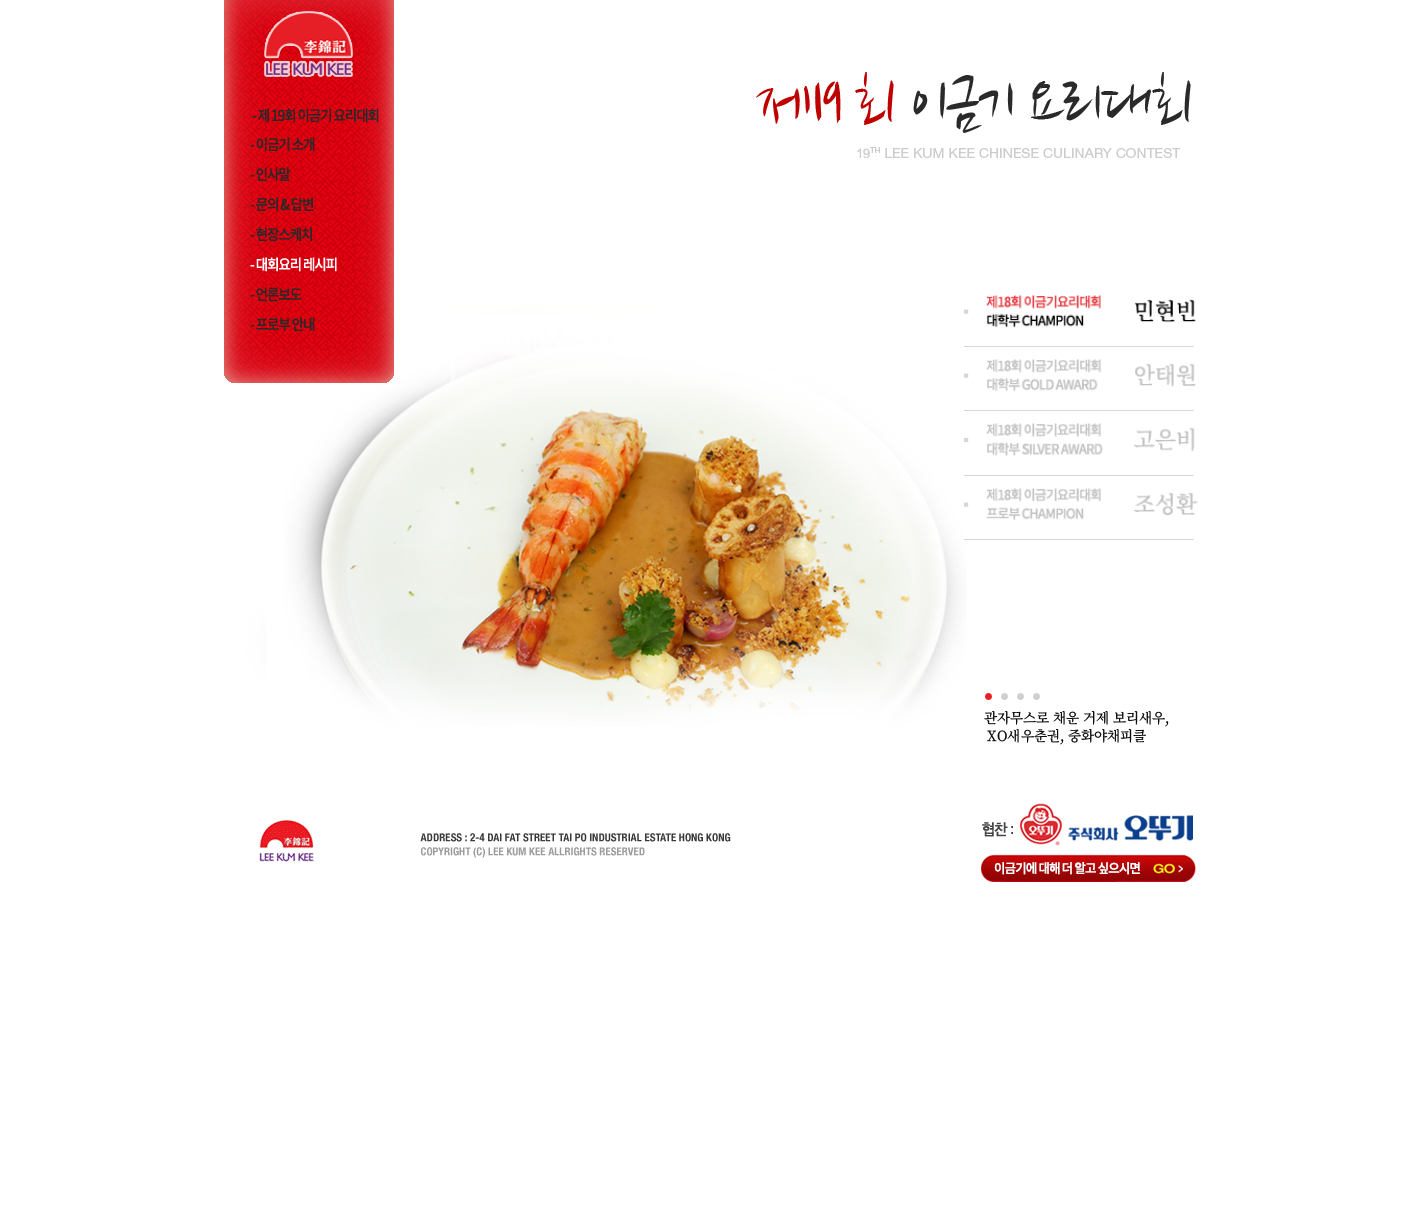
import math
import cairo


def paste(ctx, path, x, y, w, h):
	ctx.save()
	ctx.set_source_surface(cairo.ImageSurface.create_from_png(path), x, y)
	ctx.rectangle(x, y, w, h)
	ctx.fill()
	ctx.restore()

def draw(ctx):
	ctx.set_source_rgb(1, 1, 1)
	ctx.paint()
	paste(ctx, 'media/20.png', 246, 315, 702, 471)
	paste(ctx, 'media/21.png', 266, 322, 701, 464)
	paste(ctx, 'media/1.png', 224, 0, 170, 383)
	paste(ctx, 'media/2.png', 264, 11, 89, 66)
	paste(ctx, 'media/3.png', 252, 108, 127, 15)
	paste(ctx, 'media/4.png', 250, 137, 65, 15)
	paste(ctx, 'media/5.png', 250, 167, 41, 15)
	paste(ctx, 'media/6.png', 250, 197, 64, 15)
	paste(ctx, 'media/7.png', 250, 227, 62, 15)
	paste(ctx, 'media/8.png', 250, 257, 87, 15)
	paste(ctx, 'media/9.png', 250, 287, 52, 15)
	paste(ctx, 'media/10.png', 250, 317, 65, 15)
	paste(ctx, 'media/11.png', 756, 72, 435, 86)
	paste(ctx, 'media/12.png', 964, 295, 232, 52)
	paste(ctx, 'media/13.png', 964, 359, 232, 52)
	paste(ctx, 'media/14.png', 964, 423, 231, 53)
	paste(ctx, 'media/15.png', 964, 488, 234, 52)
	paste(ctx, 'media/16.png', 985, 693, 7, 7)
	paste(ctx, 'media/17.png', 1001, 693, 7, 7)
	paste(ctx, 'media/17.png', 1017, 693, 7, 7)
	paste(ctx, 'media/17.png', 1033, 693, 7, 7)
	paste(ctx, 'media/18.png', 984, 711, 185, 34)
	paste(ctx, 'media/19.png', 394, 300, 548, 15)
	paste(ctx, 'media/22.png', 259, 803, 937, 79)


surface = cairo.ImageSurface(cairo.FORMAT_RGB24, 1428, 1228)
ctx = cairo.Context(surface)
options = cairo.FontOptions()
options.set_hint_metrics(cairo.HINT_METRICS_OFF)
options.set_hint_style(cairo.HINT_STYLE_NONE)
ctx.set_font_options(options)
ctx.set_miter_limit(4)
draw(ctx)
surface.write_to_png('image.png')
